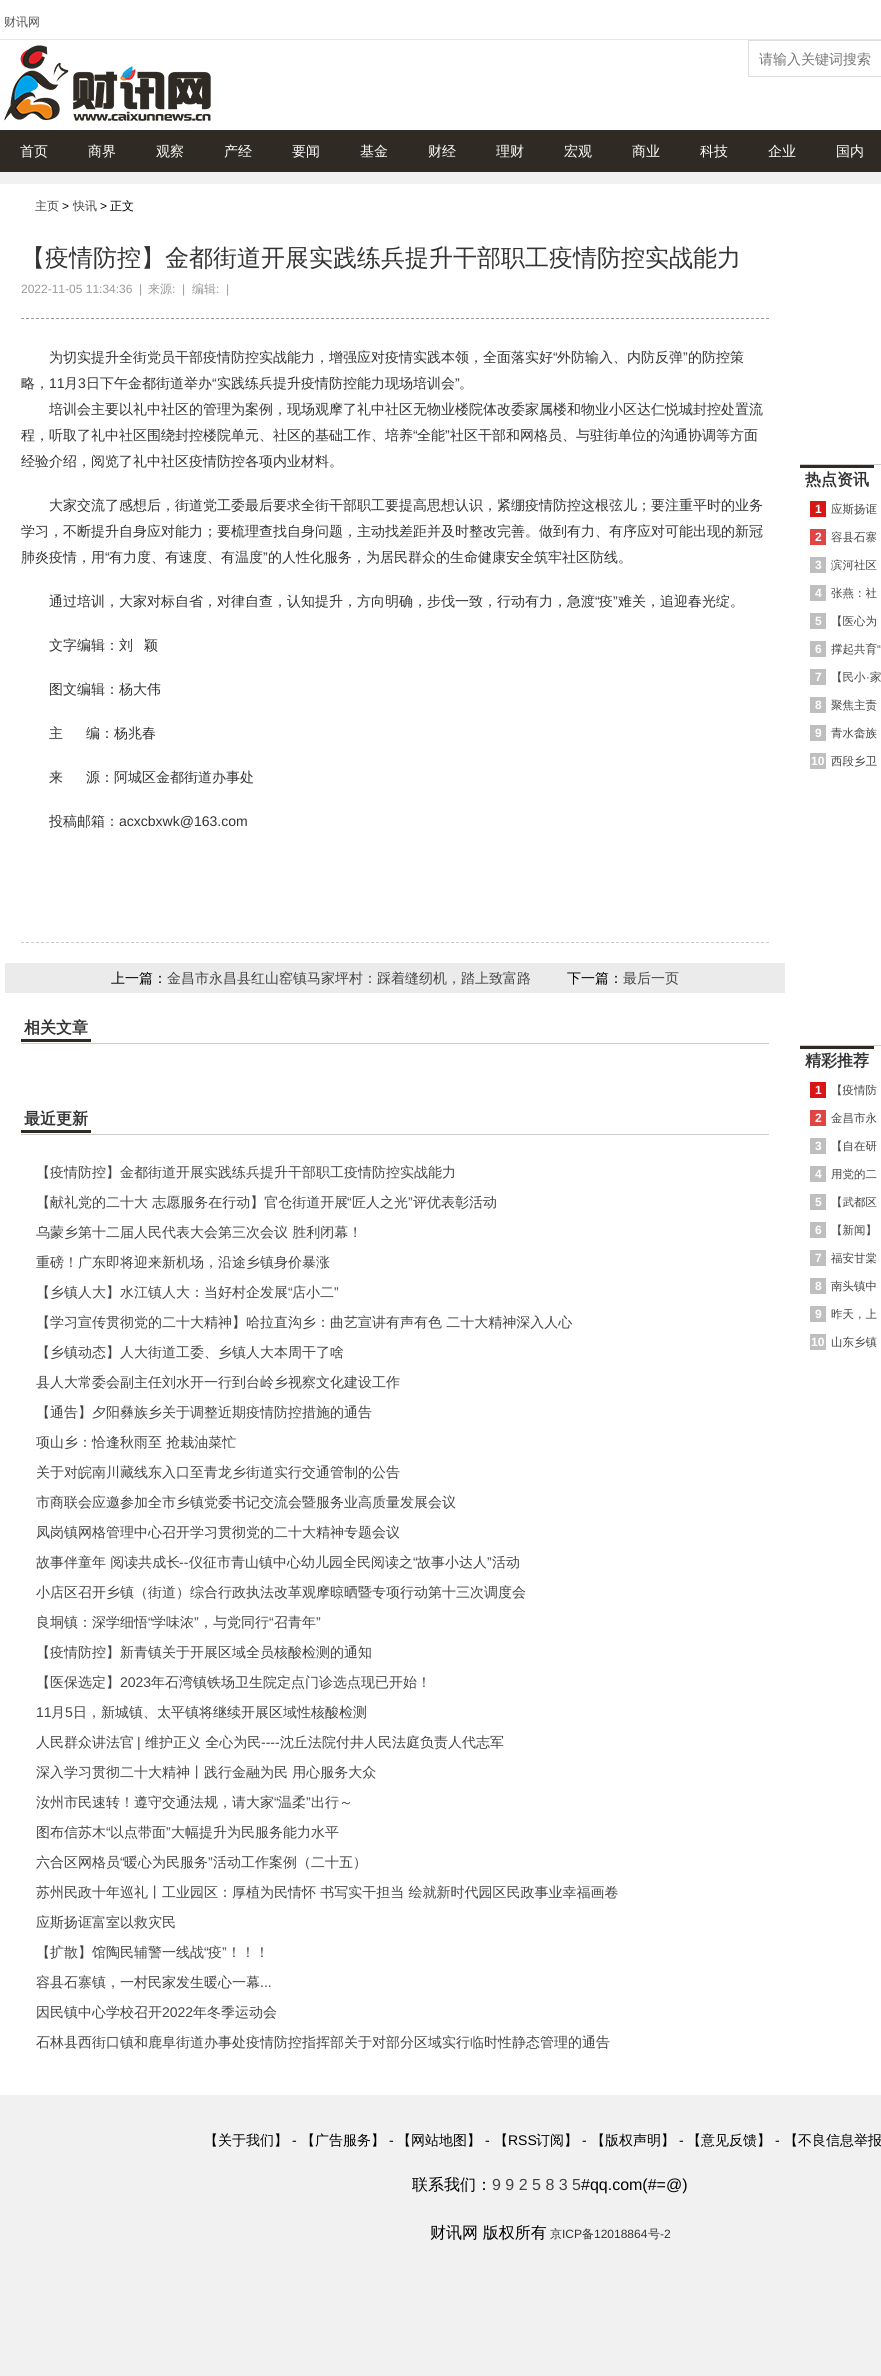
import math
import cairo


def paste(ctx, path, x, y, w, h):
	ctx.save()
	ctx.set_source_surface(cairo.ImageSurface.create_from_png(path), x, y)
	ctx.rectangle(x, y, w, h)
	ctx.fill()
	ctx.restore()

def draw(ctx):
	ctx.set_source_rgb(0.945, 0.945, 0.945)
	ctx.paint()
	ctx.set_source_rgb(1, 1, 1)
	ctx.rectangle(0, 0, 881, 130)
	ctx.fill()
	ctx.set_source_rgb(0.906, 0.906, 0.906)
	ctx.rectangle(0, 39, 881, 1)
	ctx.fill()
	ctx.select_font_face('WenQuanYi Zen Hei Medium')
	ctx.set_font_size(12)
	ctx.set_source_rgb(0.333, 0.333, 0.333)
	ctx.move_to(4, 26)
	ctx.show_text('财讯网')
	paste(ctx, 'media/1.png', 4, 45, 207, 76)
	ctx.rectangle(748.5, 40.5, 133, 36)
	ctx.set_source_rgb(0.875, 0.863, 0.863)
	ctx.set_line_width(1)
	ctx.stroke()
	ctx.set_font_size(14)
	ctx.set_source_rgb(0.459, 0.459, 0.459)
	ctx.move_to(759, 64)
	ctx.show_text('请输入关键词搜索')
	ctx.set_source_rgb(0.184, 0.165, 0.141)
	ctx.rectangle(0, 130, 881, 42)
	ctx.fill()
	ctx.set_source_rgb(1, 1, 1)
	for x, y, s in [
		(20, 156, '首页'),
		(88, 156, '商界'),
		(156, 156, '观察'),
		(224, 156, '产经'),
		(292, 156, '要闻'),
		(360, 156, '基金'),
		(428, 156, '财经'),
		(496, 156, '理财'),
		(564, 156, '宏观'),
		(632, 156, '商业'),
		(700, 156, '科技'),
		(768, 156, '企业'),
		(836, 156, '国内'),
	]:
		ctx.move_to(x, y)
		ctx.show_text(s)
	ctx.rectangle(0, 184, 881, 1911)
	ctx.fill()
	ctx.set_font_size(12)
	ctx.set_source_rgb(0.267, 0.267, 0.267)
	ctx.move_to(35, 210)
	ctx.show_text('主页')
	ctx.select_font_face('Liberation Sans')
	ctx.set_source_rgb(0, 0, 0)
	ctx.move_to(62, 210)
	ctx.show_text('>')
	ctx.select_font_face('WenQuanYi Zen Hei Medium')
	ctx.set_source_rgb(0.267, 0.267, 0.267)
	ctx.move_to(73, 210)
	ctx.show_text('快讯')
	ctx.select_font_face('Liberation Sans')
	ctx.set_source_rgb(0, 0, 0)
	ctx.move_to(100, 210)
	ctx.show_text('>')
	ctx.select_font_face('WenQuanYi Zen Hei Medium')
	ctx.move_to(110, 210)
	ctx.show_text('正文')
	ctx.new_path()
	ctx.move_to(21, 318.5)
	ctx.line_to(769, 318.5)
	ctx.set_source_rgb(0.6, 0.6, 0.6)
	ctx.set_dash([3, 2])
	ctx.stroke()
	ctx.set_font_size(24)
	ctx.set_source_rgb(0.2, 0.2, 0.2)
	ctx.move_to(21, 266)
	ctx.show_text('【疫情防控】金都街道开展实践练兵提升干部职工疫情防控实战能力')
	ctx.select_font_face('Liberation Sans')
	ctx.set_font_size(12)
	ctx.set_source_rgb(0.6, 0.6, 0.6)
	ctx.move_to(21, 293)
	ctx.show_text('2022-11-05 11:34:36  |')
	ctx.select_font_face('WenQuanYi Zen Hei Medium')
	ctx.move_to(148, 293)
	ctx.show_text('来源')
	ctx.select_font_face('Liberation Sans')
	ctx.move_to(172, 293)
	ctx.show_text(':  |')
	ctx.select_font_face('WenQuanYi Zen Hei Medium')
	ctx.move_to(192, 293)
	ctx.show_text('编辑')
	ctx.select_font_face('Liberation Sans')
	ctx.move_to(216, 293)
	ctx.show_text(':  |')
	ctx.new_path()
	ctx.move_to(21, 942.5)
	ctx.line_to(769, 942.5)
	ctx.set_source_rgb(0.8, 0.8, 0.8)
	ctx.stroke()
	ctx.select_font_face('WenQuanYi Zen Hei Medium')
	ctx.set_font_size(14)
	ctx.set_source_rgb(0.2, 0.2, 0.2)
	ctx.move_to(49, 362)
	ctx.show_text('为切实提升全街党员干部疫情防控实战能力，增强应对疫情实践本领，全面落实好')
	ctx.select_font_face('Liberation Sans')
	ctx.move_to(553, 362)
	ctx.show_text('“')
	ctx.select_font_face('WenQuanYi Zen Hei Medium')
	ctx.move_to(557, 362)
	ctx.show_text('外防输入、内防反弹')
	ctx.select_font_face('Liberation Sans')
	ctx.move_to(683, 362)
	ctx.show_text('”')
	ctx.select_font_face('WenQuanYi Zen Hei Medium')
	ctx.move_to(688, 362)
	ctx.show_text('的防控策')
	ctx.move_to(21, 388)
	ctx.show_text('略，')
	ctx.select_font_face('Liberation Sans')
	ctx.move_to(49, 388)
	ctx.show_text('11')
	ctx.select_font_face('WenQuanYi Zen Hei Medium')
	ctx.move_to(64, 388)
	ctx.show_text('月')
	ctx.select_font_face('Liberation Sans')
	ctx.move_to(78, 388)
	ctx.show_text('3')
	ctx.select_font_face('WenQuanYi Zen Hei Medium')
	ctx.move_to(86, 388)
	ctx.show_text('日下午金都街道举办')
	ctx.select_font_face('Liberation Sans')
	ctx.move_to(212, 388)
	ctx.show_text('“')
	ctx.select_font_face('WenQuanYi Zen Hei Medium')
	ctx.move_to(217, 388)
	ctx.show_text('实践练兵提升疫情防控能力现场培训会')
	ctx.select_font_face('Liberation Sans')
	ctx.move_to(455, 388)
	ctx.show_text('”')
	ctx.select_font_face('WenQuanYi Zen Hei Medium')
	for x, y, s in [
		(459, 388, '。'),
		(49, 414, '培训会主要以礼中社区的管理为案例，现场观摩了礼中社区无物业楼院体改委家属楼和物业小区达仁悦城封控处置流'),
		(21, 440, '程，听取了礼中社区围绕封控楼院单元、社区的基础工作、培养'),
	]:
		ctx.move_to(x, y)
		ctx.show_text(s)
	ctx.select_font_face('Liberation Sans')
	ctx.move_to(413, 440)
	ctx.show_text('“')
	ctx.select_font_face('WenQuanYi Zen Hei Medium')
	ctx.move_to(417, 440)
	ctx.show_text('全能')
	ctx.select_font_face('Liberation Sans')
	ctx.move_to(445, 440)
	ctx.show_text('”')
	ctx.select_font_face('WenQuanYi Zen Hei Medium')
	for x, y, s in [
		(450, 440, '社区干部和网格员、与驻街单位的沟通协调等方面'),
		(21, 466, '经验介绍，阅览了礼中社区疫情防控各项内业材料。'),
		(49, 510, '大家交流了感想后，街道党工委最后要求全街干部职工要提高思想认识，紧绷疫情防控这根弦儿；要注重平时的业务'),
		(21, 536, '学习，不断提升自身应对能力；要梳理查找自身问题，主动找差距并及时整改完善。做到有力、有序应对可能出现的新冠'),
		(21, 562, '肺炎疫情，用'),
	]:
		ctx.move_to(x, y)
		ctx.show_text(s)
	ctx.select_font_face('Liberation Sans')
	ctx.move_to(105, 562)
	ctx.show_text('“')
	ctx.select_font_face('WenQuanYi Zen Hei Medium')
	ctx.move_to(109, 562)
	ctx.show_text('有力度、有速度、有温度')
	ctx.select_font_face('Liberation Sans')
	ctx.move_to(263, 562)
	ctx.show_text('”')
	ctx.select_font_face('WenQuanYi Zen Hei Medium')
	ctx.move_to(268, 562)
	ctx.show_text('的人性化服务，为居民群众的生命健康安全筑牢社区防线。')
	ctx.move_to(49, 606)
	ctx.show_text('通过培训，大家对标自省，对律自查，认知提升，方向明确，步伐一致，行动有力，急渡')
	ctx.select_font_face('Liberation Sans')
	ctx.move_to(595, 606)
	ctx.show_text('“')
	ctx.select_font_face('WenQuanYi Zen Hei Medium')
	ctx.move_to(599, 606)
	ctx.show_text('疫')
	ctx.select_font_face('Liberation Sans')
	ctx.move_to(613, 606)
	ctx.show_text('”')
	ctx.select_font_face('WenQuanYi Zen Hei Medium')
	for x, y, s in [
		(618, 606, '难关，追迎春光绽。'),
		(49, 650, '文字编辑：刘'),
		(144, 650, '颖'),
		(49, 694, '图文编辑：杨大伟'),
		(49, 738, '主'),
		(86, 738, '编：杨兆春'),
		(49, 782, '来'),
		(86, 782, '源：阿城区金都街道办事处'),
		(49, 826, '投稿邮箱：'),
	]:
		ctx.move_to(x, y)
		ctx.show_text(s)
	ctx.select_font_face('Liberation Sans')
	ctx.move_to(119, 826)
	ctx.show_text('acxcbxwk@163.com')
	ctx.set_source_rgb(0.918, 0.918, 0.918)
	ctx.rectangle(5, 963, 780, 30)
	ctx.fill()
	ctx.select_font_face('WenQuanYi Zen Hei Medium')
	ctx.set_source_rgb(0, 0, 0)
	ctx.move_to(111, 983)
	ctx.show_text('上一篇：')
	ctx.set_source_rgb(0.267, 0.267, 0.267)
	ctx.move_to(167, 983)
	ctx.show_text('金昌市永昌县红山窑镇马家坪村：踩着缝纫机，踏上致富路')
	ctx.set_source_rgb(0, 0, 0)
	ctx.move_to(567, 983)
	ctx.show_text('下一篇：')
	ctx.set_source_rgb(0.267, 0.267, 0.267)
	ctx.move_to(623, 983)
	ctx.show_text('最后一页')
	ctx.set_source_rgb(0.8, 0.8, 0.8)
	ctx.rectangle(21, 1043, 748, 1)
	ctx.fill()
	ctx.select_font_face('WenQuanYi Zen Hei', cairo.FONT_SLANT_NORMAL, cairo.FONT_WEIGHT_BOLD)
	ctx.set_font_size(16)
	ctx.set_source_rgb(0.2, 0.2, 0.2)
	ctx.move_to(24, 1033)
	ctx.show_text('相关文章')
	ctx.set_source_rgb(0.184, 0.165, 0.141)
	ctx.rectangle(21, 1039, 70, 3)
	ctx.fill()
	ctx.set_source_rgb(0.8, 0.8, 0.8)
	ctx.rectangle(21, 1134, 748, 1)
	ctx.fill()
	ctx.set_source_rgb(0.2, 0.2, 0.2)
	ctx.move_to(24, 1124)
	ctx.show_text('最近更新')
	ctx.set_source_rgb(0.184, 0.165, 0.141)
	ctx.rectangle(21, 1130, 70, 3)
	ctx.fill()
	ctx.select_font_face('WenQuanYi Zen Hei Medium')
	ctx.set_font_size(14)
	ctx.set_source_rgb(0.267, 0.267, 0.267)
	ctx.move_to(36, 1177)
	ctx.show_text('【疫情防控】金都街道开展实践练兵提升干部职工疫情防控实战能力')
	ctx.move_to(36, 1207)
	ctx.show_text('【献礼党的二十大 志愿服务在行动】官仓街道开展')
	ctx.select_font_face('Liberation Sans')
	ctx.move_to(347, 1207)
	ctx.show_text('“')
	ctx.select_font_face('WenQuanYi Zen Hei Medium')
	ctx.move_to(352, 1207)
	ctx.show_text('匠人之光')
	ctx.select_font_face('Liberation Sans')
	ctx.move_to(408, 1207)
	ctx.show_text('”')
	ctx.select_font_face('WenQuanYi Zen Hei Medium')
	for x, y, s in [
		(413, 1207, '评优表彰活动'),
		(36, 1237, '乌蒙乡第十二届人民代表大会第三次会议 胜利闭幕！'),
		(36, 1267, '重磅！广东即将迎来新机场，沿途乡镇身价暴涨'),
		(36, 1297, '【乡镇人大】水江镇人大：当好村企发展'),
	]:
		ctx.move_to(x, y)
		ctx.show_text(s)
	ctx.select_font_face('Liberation Sans')
	ctx.move_to(288, 1297)
	ctx.show_text('“')
	ctx.select_font_face('WenQuanYi Zen Hei Medium')
	ctx.move_to(292, 1297)
	ctx.show_text('店小二')
	ctx.select_font_face('Liberation Sans')
	ctx.move_to(334, 1297)
	ctx.show_text('”')
	ctx.select_font_face('WenQuanYi Zen Hei Medium')
	for x, y, s in [
		(36, 1327, '【学习宣传贯彻党的二十大精神】哈拉直沟乡：曲艺宣讲有声有色 二十大精神深入人心'),
		(36, 1357, '【乡镇动态】人大街道工委、乡镇人大本周干了啥'),
		(36, 1387, '县人大常委会副主任刘水开一行到台岭乡视察文化建设工作'),
		(36, 1417, '【通告】夕阳彝族乡关于调整近期疫情防控措施的通告'),
		(36, 1447, '项山乡：恰逢秋雨至 抢栽油菜忙'),
		(36, 1477, '关于对皖南川藏线东入口至青龙乡街道实行交通管制的公告'),
		(36, 1507, '市商联会应邀参加全市乡镇党委书记交流会暨服务业高质量发展会议'),
		(36, 1537, '凤岗镇网格管理中心召开学习贯彻党的二十大精神专题会议'),
		(36, 1567, '故事伴童年 阅读共成长'),
	]:
		ctx.move_to(x, y)
		ctx.show_text(s)
	ctx.select_font_face('Liberation Sans')
	ctx.move_to(179, 1567)
	ctx.show_text('--')
	ctx.select_font_face('WenQuanYi Zen Hei Medium')
	ctx.move_to(189, 1567)
	ctx.show_text('仪征市青山镇中心幼儿园全民阅读之')
	ctx.select_font_face('Liberation Sans')
	ctx.move_to(413, 1567)
	ctx.show_text('“')
	ctx.select_font_face('WenQuanYi Zen Hei Medium')
	ctx.move_to(417, 1567)
	ctx.show_text('故事小达人')
	ctx.select_font_face('Liberation Sans')
	ctx.move_to(487, 1567)
	ctx.show_text('”')
	ctx.select_font_face('WenQuanYi Zen Hei Medium')
	for x, y, s in [
		(492, 1567, '活动'),
		(36, 1597, '小店区召开乡镇（街道）综合行政执法改革观摩晾晒暨专项行动第十三次调度会'),
		(36, 1627, '良垌镇：深学细悟'),
	]:
		ctx.move_to(x, y)
		ctx.show_text(s)
	ctx.select_font_face('Liberation Sans')
	ctx.move_to(148, 1627)
	ctx.show_text('“')
	ctx.select_font_face('WenQuanYi Zen Hei Medium')
	ctx.move_to(152, 1627)
	ctx.show_text('学味浓')
	ctx.select_font_face('Liberation Sans')
	ctx.move_to(194, 1627)
	ctx.show_text('”')
	ctx.select_font_face('WenQuanYi Zen Hei Medium')
	ctx.move_to(199, 1627)
	ctx.show_text('，与党同行')
	ctx.select_font_face('Liberation Sans')
	ctx.move_to(269, 1627)
	ctx.show_text('“')
	ctx.select_font_face('WenQuanYi Zen Hei Medium')
	ctx.move_to(274, 1627)
	ctx.show_text('召青年')
	ctx.select_font_face('Liberation Sans')
	ctx.move_to(316, 1627)
	ctx.show_text('”')
	ctx.select_font_face('WenQuanYi Zen Hei Medium')
	ctx.move_to(36, 1657)
	ctx.show_text('【疫情防控】新青镇关于开展区域全员核酸检测的通知')
	ctx.move_to(36, 1687)
	ctx.show_text('【医保选定】')
	ctx.select_font_face('Liberation Sans')
	ctx.move_to(120, 1687)
	ctx.show_text('2023')
	ctx.select_font_face('WenQuanYi Zen Hei Medium')
	ctx.move_to(151, 1687)
	ctx.show_text('年石湾镇铁场卫生院定点门诊选点现已开始！')
	ctx.select_font_face('Liberation Sans')
	ctx.move_to(36, 1717)
	ctx.show_text('11')
	ctx.select_font_face('WenQuanYi Zen Hei Medium')
	ctx.move_to(51, 1717)
	ctx.show_text('月')
	ctx.select_font_face('Liberation Sans')
	ctx.move_to(65, 1717)
	ctx.show_text('5')
	ctx.select_font_face('WenQuanYi Zen Hei Medium')
	ctx.move_to(73, 1717)
	ctx.show_text('日，新城镇、太平镇将继续开展区域性核酸检测')
	ctx.move_to(36, 1747)
	ctx.show_text('人民群众讲法官')
	ctx.select_font_face('Liberation Sans')
	ctx.move_to(137, 1747)
	ctx.show_text('|')
	ctx.select_font_face('WenQuanYi Zen Hei Medium')
	ctx.move_to(145, 1747)
	ctx.show_text('维护正义 全心为民')
	ctx.select_font_face('Liberation Sans')
	ctx.move_to(261, 1747)
	ctx.show_text('----')
	ctx.select_font_face('WenQuanYi Zen Hei Medium')
	for x, y, s in [
		(280, 1747, '沈丘法院付井人民法庭负责人代志军'),
		(36, 1777, '深入学习贯彻二十大精神丨践行金融为民 用心服务大众'),
		(36, 1807, '汝州市民速转！遵守交通法规，请大家'),
	]:
		ctx.move_to(x, y)
		ctx.show_text(s)
	ctx.select_font_face('Liberation Sans')
	ctx.move_to(274, 1807)
	ctx.show_text('“')
	ctx.select_font_face('WenQuanYi Zen Hei Medium')
	ctx.move_to(278, 1807)
	ctx.show_text('温柔')
	ctx.select_font_face('Liberation Sans')
	ctx.move_to(306, 1807)
	ctx.show_text('”')
	ctx.select_font_face('WenQuanYi Zen Hei Medium')
	ctx.move_to(311, 1807)
	ctx.show_text('出行～')
	ctx.move_to(36, 1837)
	ctx.show_text('图布信苏木')
	ctx.select_font_face('Liberation Sans')
	ctx.move_to(106, 1837)
	ctx.show_text('“')
	ctx.select_font_face('WenQuanYi Zen Hei Medium')
	ctx.move_to(110, 1837)
	ctx.show_text('以点带面')
	ctx.select_font_face('Liberation Sans')
	ctx.move_to(166, 1837)
	ctx.show_text('”')
	ctx.select_font_face('WenQuanYi Zen Hei Medium')
	ctx.move_to(171, 1837)
	ctx.show_text('大幅提升为民服务能力水平')
	ctx.move_to(36, 1867)
	ctx.show_text('六合区网格员')
	ctx.select_font_face('Liberation Sans')
	ctx.move_to(120, 1867)
	ctx.show_text('“')
	ctx.select_font_face('WenQuanYi Zen Hei Medium')
	ctx.move_to(124, 1867)
	ctx.show_text('暖心为民服务')
	ctx.select_font_face('Liberation Sans')
	ctx.move_to(208, 1867)
	ctx.show_text('”')
	ctx.select_font_face('WenQuanYi Zen Hei Medium')
	for x, y, s in [
		(213, 1867, '活动工作案例（二十五）'),
		(36, 1897, '苏州民政十年巡礼丨工业园区：厚植为民情怀 书写实干担当 绘就新时代园区民政事业幸福画卷'),
		(36, 1927, '应斯扬诓富室以救灾民'),
		(36, 1957, '【扩散】馆陶民辅警一线战'),
	]:
		ctx.move_to(x, y)
		ctx.show_text(s)
	ctx.select_font_face('Liberation Sans')
	ctx.move_to(204, 1957)
	ctx.show_text('“')
	ctx.select_font_face('WenQuanYi Zen Hei Medium')
	ctx.move_to(208, 1957)
	ctx.show_text('疫')
	ctx.select_font_face('Liberation Sans')
	ctx.move_to(222, 1957)
	ctx.show_text('”')
	ctx.select_font_face('WenQuanYi Zen Hei Medium')
	ctx.move_to(227, 1957)
	ctx.show_text('！！！')
	ctx.move_to(36, 1987)
	ctx.show_text('容县石寨镇，一村民家发生暖心一幕')
	ctx.select_font_face('Liberation Sans')
	ctx.move_to(260, 1987)
	ctx.show_text('...')
	ctx.select_font_face('WenQuanYi Zen Hei Medium')
	ctx.move_to(36, 2017)
	ctx.show_text('因民镇中心学校召开')
	ctx.select_font_face('Liberation Sans')
	ctx.move_to(162, 2017)
	ctx.show_text('2022')
	ctx.select_font_face('WenQuanYi Zen Hei Medium')
	ctx.move_to(193, 2017)
	ctx.show_text('年冬季运动会')
	ctx.move_to(36, 2047)
	ctx.show_text('石林县西街口镇和鹿阜街道办事处疫情防控指挥部关于对部分区域实行临时性静态管理的通告')
	ctx.set_source_rgb(0.8, 0.8, 0.8)
	ctx.rectangle(800, 464, 81, 1)
	ctx.fill()
	ctx.select_font_face('WenQuanYi Zen Hei', cairo.FONT_SLANT_NORMAL, cairo.FONT_WEIGHT_BOLD)
	ctx.set_font_size(16)
	ctx.set_source_rgb(0.2, 0.2, 0.2)
	ctx.move_to(805, 485)
	ctx.show_text('热点资讯')
	ctx.set_source_rgb(0.184, 0.165, 0.141)
	ctx.rectangle(800, 465, 74, 3)
	ctx.fill()
	ctx.set_source_rgb(0.847, 0.086, 0.09)
	ctx.rectangle(810, 501, 16, 16)
	ctx.fill()
	ctx.select_font_face('Liberation Sans', cairo.FONT_SLANT_NORMAL, cairo.FONT_WEIGHT_BOLD)
	ctx.set_font_size(12)
	ctx.set_source_rgb(1, 1, 1)
	ctx.move_to(815, 513)
	ctx.show_text('1')
	ctx.select_font_face('WenQuanYi Zen Hei Medium')
	ctx.set_font_size(11.5)
	ctx.set_source_rgb(0.267, 0.267, 0.267)
	ctx.move_to(831, 513)
	ctx.show_text('应斯扬诓')
	ctx.set_source_rgb(0.878, 0.271, 0.271)
	ctx.rectangle(810, 529, 16, 16)
	ctx.fill()
	ctx.select_font_face('Liberation Sans', cairo.FONT_SLANT_NORMAL, cairo.FONT_WEIGHT_BOLD)
	ctx.set_font_size(12)
	ctx.set_source_rgb(1, 1, 1)
	ctx.move_to(815, 541)
	ctx.show_text('2')
	ctx.select_font_face('WenQuanYi Zen Hei Medium')
	ctx.set_font_size(11.5)
	ctx.set_source_rgb(0.267, 0.267, 0.267)
	ctx.move_to(831, 541)
	ctx.show_text('容县石寨')
	ctx.set_source_rgb(0.749, 0.749, 0.749)
	ctx.rectangle(810, 557, 16, 16)
	ctx.fill()
	ctx.select_font_face('Liberation Sans', cairo.FONT_SLANT_NORMAL, cairo.FONT_WEIGHT_BOLD)
	ctx.set_font_size(12)
	ctx.set_source_rgb(1, 1, 1)
	ctx.move_to(815, 569)
	ctx.show_text('3')
	ctx.select_font_face('WenQuanYi Zen Hei Medium')
	ctx.set_font_size(11.5)
	ctx.set_source_rgb(0.267, 0.267, 0.267)
	ctx.move_to(831, 569)
	ctx.show_text('滨河社区')
	ctx.set_source_rgb(0.749, 0.749, 0.749)
	ctx.rectangle(810, 585, 16, 16)
	ctx.fill()
	ctx.select_font_face('Liberation Sans', cairo.FONT_SLANT_NORMAL, cairo.FONT_WEIGHT_BOLD)
	ctx.set_font_size(12)
	ctx.set_source_rgb(1, 1, 1)
	ctx.move_to(815, 597)
	ctx.show_text('4')
	ctx.select_font_face('WenQuanYi Zen Hei Medium')
	ctx.set_font_size(11.5)
	ctx.set_source_rgb(0.267, 0.267, 0.267)
	ctx.move_to(831, 597)
	ctx.show_text('张燕：社')
	ctx.set_source_rgb(0.749, 0.749, 0.749)
	ctx.rectangle(810, 613, 16, 16)
	ctx.fill()
	ctx.select_font_face('Liberation Sans', cairo.FONT_SLANT_NORMAL, cairo.FONT_WEIGHT_BOLD)
	ctx.set_font_size(12)
	ctx.set_source_rgb(1, 1, 1)
	ctx.move_to(815, 625)
	ctx.show_text('5')
	ctx.select_font_face('WenQuanYi Zen Hei Medium')
	ctx.set_font_size(11.5)
	ctx.set_source_rgb(0.267, 0.267, 0.267)
	ctx.move_to(831, 625)
	ctx.show_text('【医心为')
	ctx.set_source_rgb(0.749, 0.749, 0.749)
	ctx.rectangle(810, 641, 16, 16)
	ctx.fill()
	ctx.select_font_face('Liberation Sans', cairo.FONT_SLANT_NORMAL, cairo.FONT_WEIGHT_BOLD)
	ctx.set_font_size(12)
	ctx.set_source_rgb(1, 1, 1)
	ctx.move_to(815, 653)
	ctx.show_text('6')
	ctx.select_font_face('WenQuanYi Zen Hei Medium')
	ctx.set_font_size(11.5)
	ctx.set_source_rgb(0.267, 0.267, 0.267)
	ctx.move_to(831, 653)
	ctx.show_text('撑起共育')
	ctx.select_font_face('Liberation Sans')
	ctx.move_to(877, 653)
	ctx.show_text('“')
	ctx.set_source_rgb(0.749, 0.749, 0.749)
	ctx.rectangle(810, 669, 16, 16)
	ctx.fill()
	ctx.select_font_face('Liberation Sans', cairo.FONT_SLANT_NORMAL, cairo.FONT_WEIGHT_BOLD)
	ctx.set_font_size(12)
	ctx.set_source_rgb(1, 1, 1)
	ctx.move_to(815, 681)
	ctx.show_text('7')
	ctx.select_font_face('WenQuanYi Zen Hei Medium')
	ctx.set_font_size(11.5)
	ctx.set_source_rgb(0.267, 0.267, 0.267)
	ctx.move_to(831, 681)
	ctx.show_text('【民小')
	ctx.select_font_face('Liberation Sans')
	ctx.move_to(866, 681)
	ctx.show_text('·')
	ctx.select_font_face('WenQuanYi Zen Hei Medium')
	ctx.move_to(870, 681)
	ctx.show_text('家')
	ctx.set_source_rgb(0.749, 0.749, 0.749)
	ctx.rectangle(810, 697, 16, 16)
	ctx.fill()
	ctx.select_font_face('Liberation Sans', cairo.FONT_SLANT_NORMAL, cairo.FONT_WEIGHT_BOLD)
	ctx.set_font_size(12)
	ctx.set_source_rgb(1, 1, 1)
	ctx.move_to(815, 709)
	ctx.show_text('8')
	ctx.select_font_face('WenQuanYi Zen Hei Medium')
	ctx.set_font_size(11.5)
	ctx.set_source_rgb(0.267, 0.267, 0.267)
	ctx.move_to(831, 709)
	ctx.show_text('聚焦主责')
	ctx.set_source_rgb(0.749, 0.749, 0.749)
	ctx.rectangle(810, 725, 16, 16)
	ctx.fill()
	ctx.select_font_face('Liberation Sans', cairo.FONT_SLANT_NORMAL, cairo.FONT_WEIGHT_BOLD)
	ctx.set_font_size(12)
	ctx.set_source_rgb(1, 1, 1)
	ctx.move_to(815, 737)
	ctx.show_text('9')
	ctx.select_font_face('WenQuanYi Zen Hei Medium')
	ctx.set_font_size(11.5)
	ctx.set_source_rgb(0.267, 0.267, 0.267)
	ctx.move_to(831, 737)
	ctx.show_text('青水畲族')
	ctx.set_source_rgb(0.749, 0.749, 0.749)
	ctx.rectangle(810, 753, 16, 16)
	ctx.fill()
	ctx.select_font_face('Liberation Sans', cairo.FONT_SLANT_NORMAL, cairo.FONT_WEIGHT_BOLD)
	ctx.set_font_size(12)
	ctx.set_source_rgb(1, 1, 1)
	ctx.move_to(811, 765)
	ctx.show_text('10')
	ctx.select_font_face('WenQuanYi Zen Hei Medium')
	ctx.set_font_size(11.5)
	ctx.set_source_rgb(0.267, 0.267, 0.267)
	ctx.move_to(831, 765)
	ctx.show_text('西段乡卫')
	ctx.set_source_rgb(0.8, 0.8, 0.8)
	ctx.rectangle(800, 1045, 81, 1)
	ctx.fill()
	ctx.select_font_face('WenQuanYi Zen Hei', cairo.FONT_SLANT_NORMAL, cairo.FONT_WEIGHT_BOLD)
	ctx.set_font_size(16)
	ctx.set_source_rgb(0.2, 0.2, 0.2)
	ctx.move_to(805, 1066)
	ctx.show_text('精彩推荐')
	ctx.set_source_rgb(0.184, 0.165, 0.141)
	ctx.rectangle(800, 1046, 74, 3)
	ctx.fill()
	ctx.set_source_rgb(0.847, 0.086, 0.09)
	ctx.rectangle(810, 1082, 16, 16)
	ctx.fill()
	ctx.select_font_face('Liberation Sans', cairo.FONT_SLANT_NORMAL, cairo.FONT_WEIGHT_BOLD)
	ctx.set_font_size(12)
	ctx.set_source_rgb(1, 1, 1)
	ctx.move_to(815, 1094)
	ctx.show_text('1')
	ctx.select_font_face('WenQuanYi Zen Hei Medium')
	ctx.set_font_size(11.5)
	ctx.set_source_rgb(0.267, 0.267, 0.267)
	ctx.move_to(831, 1094)
	ctx.show_text('【疫情防')
	ctx.set_source_rgb(0.878, 0.271, 0.271)
	ctx.rectangle(810, 1110, 16, 16)
	ctx.fill()
	ctx.select_font_face('Liberation Sans', cairo.FONT_SLANT_NORMAL, cairo.FONT_WEIGHT_BOLD)
	ctx.set_font_size(12)
	ctx.set_source_rgb(1, 1, 1)
	ctx.move_to(815, 1122)
	ctx.show_text('2')
	ctx.select_font_face('WenQuanYi Zen Hei Medium')
	ctx.set_font_size(11.5)
	ctx.set_source_rgb(0.267, 0.267, 0.267)
	ctx.move_to(831, 1122)
	ctx.show_text('金昌市永')
	ctx.set_source_rgb(0.749, 0.749, 0.749)
	ctx.rectangle(810, 1138, 16, 16)
	ctx.fill()
	ctx.select_font_face('Liberation Sans', cairo.FONT_SLANT_NORMAL, cairo.FONT_WEIGHT_BOLD)
	ctx.set_font_size(12)
	ctx.set_source_rgb(1, 1, 1)
	ctx.move_to(815, 1150)
	ctx.show_text('3')
	ctx.select_font_face('WenQuanYi Zen Hei Medium')
	ctx.set_font_size(11.5)
	ctx.set_source_rgb(0.267, 0.267, 0.267)
	ctx.move_to(831, 1150)
	ctx.show_text('【自在研')
	ctx.set_source_rgb(0.749, 0.749, 0.749)
	ctx.rectangle(810, 1166, 16, 16)
	ctx.fill()
	ctx.select_font_face('Liberation Sans', cairo.FONT_SLANT_NORMAL, cairo.FONT_WEIGHT_BOLD)
	ctx.set_font_size(12)
	ctx.set_source_rgb(1, 1, 1)
	ctx.move_to(815, 1178)
	ctx.show_text('4')
	ctx.select_font_face('WenQuanYi Zen Hei Medium')
	ctx.set_font_size(11.5)
	ctx.set_source_rgb(0.267, 0.267, 0.267)
	ctx.move_to(831, 1178)
	ctx.show_text('用党的二')
	ctx.set_source_rgb(0.749, 0.749, 0.749)
	ctx.rectangle(810, 1194, 16, 16)
	ctx.fill()
	ctx.select_font_face('Liberation Sans', cairo.FONT_SLANT_NORMAL, cairo.FONT_WEIGHT_BOLD)
	ctx.set_font_size(12)
	ctx.set_source_rgb(1, 1, 1)
	ctx.move_to(815, 1206)
	ctx.show_text('5')
	ctx.select_font_face('WenQuanYi Zen Hei Medium')
	ctx.set_font_size(11.5)
	ctx.set_source_rgb(0.267, 0.267, 0.267)
	ctx.move_to(831, 1206)
	ctx.show_text('【武都区')
	ctx.set_source_rgb(0.749, 0.749, 0.749)
	ctx.rectangle(810, 1222, 16, 16)
	ctx.fill()
	ctx.select_font_face('Liberation Sans', cairo.FONT_SLANT_NORMAL, cairo.FONT_WEIGHT_BOLD)
	ctx.set_font_size(12)
	ctx.set_source_rgb(1, 1, 1)
	ctx.move_to(815, 1234)
	ctx.show_text('6')
	ctx.select_font_face('WenQuanYi Zen Hei Medium')
	ctx.set_font_size(11.5)
	ctx.set_source_rgb(0.267, 0.267, 0.267)
	ctx.move_to(831, 1234)
	ctx.show_text('【新闻】')
	ctx.set_source_rgb(0.749, 0.749, 0.749)
	ctx.rectangle(810, 1250, 16, 16)
	ctx.fill()
	ctx.select_font_face('Liberation Sans', cairo.FONT_SLANT_NORMAL, cairo.FONT_WEIGHT_BOLD)
	ctx.set_font_size(12)
	ctx.set_source_rgb(1, 1, 1)
	ctx.move_to(815, 1262)
	ctx.show_text('7')
	ctx.select_font_face('WenQuanYi Zen Hei Medium')
	ctx.set_font_size(11.5)
	ctx.set_source_rgb(0.267, 0.267, 0.267)
	ctx.move_to(831, 1262)
	ctx.show_text('福安甘棠')
	ctx.set_source_rgb(0.749, 0.749, 0.749)
	ctx.rectangle(810, 1278, 16, 16)
	ctx.fill()
	ctx.select_font_face('Liberation Sans', cairo.FONT_SLANT_NORMAL, cairo.FONT_WEIGHT_BOLD)
	ctx.set_font_size(12)
	ctx.set_source_rgb(1, 1, 1)
	ctx.move_to(815, 1290)
	ctx.show_text('8')
	ctx.select_font_face('WenQuanYi Zen Hei Medium')
	ctx.set_font_size(11.5)
	ctx.set_source_rgb(0.267, 0.267, 0.267)
	ctx.move_to(831, 1290)
	ctx.show_text('南头镇中')
	ctx.set_source_rgb(0.749, 0.749, 0.749)
	ctx.rectangle(810, 1306, 16, 16)
	ctx.fill()
	ctx.select_font_face('Liberation Sans', cairo.FONT_SLANT_NORMAL, cairo.FONT_WEIGHT_BOLD)
	ctx.set_font_size(12)
	ctx.set_source_rgb(1, 1, 1)
	ctx.move_to(815, 1318)
	ctx.show_text('9')
	ctx.select_font_face('WenQuanYi Zen Hei Medium')
	ctx.set_font_size(11.5)
	ctx.set_source_rgb(0.267, 0.267, 0.267)
	ctx.move_to(831, 1318)
	ctx.show_text('昨天，上')
	ctx.set_source_rgb(0.749, 0.749, 0.749)
	ctx.rectangle(810, 1334, 16, 16)
	ctx.fill()
	ctx.select_font_face('Liberation Sans', cairo.FONT_SLANT_NORMAL, cairo.FONT_WEIGHT_BOLD)
	ctx.set_font_size(12)
	ctx.set_source_rgb(1, 1, 1)
	ctx.move_to(811, 1346)
	ctx.show_text('10')
	ctx.select_font_face('WenQuanYi Zen Hei Medium')
	ctx.set_font_size(11.5)
	ctx.set_source_rgb(0.267, 0.267, 0.267)
	ctx.move_to(831, 1346)
	ctx.show_text('山东乡镇')
	ctx.set_font_size(14)
	ctx.set_source_rgb(0, 0, 0)
	ctx.move_to(204, 2145)
	ctx.show_text('【关于我们】')
	ctx.select_font_face('Liberation Sans')
	ctx.move_to(292, 2145)
	ctx.show_text('-')
	ctx.select_font_face('WenQuanYi Zen Hei Medium')
	ctx.move_to(301, 2145)
	ctx.show_text('【广告服务】')
	ctx.select_font_face('Liberation Sans')
	ctx.move_to(389, 2145)
	ctx.show_text('-')
	ctx.select_font_face('WenQuanYi Zen Hei Medium')
	ctx.move_to(397, 2145)
	ctx.show_text('【网站地图】')
	ctx.select_font_face('Liberation Sans')
	ctx.move_to(485, 2145)
	ctx.show_text('-')
	ctx.select_font_face('WenQuanYi Zen Hei Medium')
	ctx.move_to(494, 2145)
	ctx.show_text('【')
	ctx.select_font_face('Liberation Sans')
	ctx.move_to(508, 2145)
	ctx.show_text('RSS')
	ctx.select_font_face('WenQuanYi Zen Hei Medium')
	ctx.move_to(536, 2145)
	ctx.show_text('订阅】')
	ctx.select_font_face('Liberation Sans')
	ctx.move_to(582, 2145)
	ctx.show_text('-')
	ctx.select_font_face('WenQuanYi Zen Hei Medium')
	ctx.move_to(591, 2145)
	ctx.show_text('【版权声明】')
	ctx.select_font_face('Liberation Sans')
	ctx.move_to(679, 2145)
	ctx.show_text('-')
	ctx.select_font_face('WenQuanYi Zen Hei Medium')
	ctx.move_to(687, 2145)
	ctx.show_text('【意见反馈】')
	ctx.select_font_face('Liberation Sans')
	ctx.move_to(775, 2145)
	ctx.show_text('-')
	ctx.select_font_face('WenQuanYi Zen Hei Medium')
	ctx.move_to(784, 2145)
	ctx.show_text('【不良信息举报')
	ctx.set_font_size(16)
	ctx.move_to(412, 2190)
	ctx.show_text('联系我们：')
	ctx.select_font_face('Liberation Sans')
	ctx.set_source_rgb(0.267, 0.267, 0.267)
	ctx.move_to(492, 2190)
	ctx.show_text('9 9 2 5 8 3 5')
	ctx.set_source_rgb(0, 0, 0)
	ctx.move_to(581, 2190)
	ctx.show_text('#qq.com(#=@)')
	ctx.select_font_face('WenQuanYi Zen Hei Medium')
	ctx.move_to(430, 2238)
	ctx.show_text('财讯网 版权所有')
	ctx.set_font_size(12)
	ctx.set_source_rgb(0.2, 0.2, 0.2)
	ctx.move_to(550, 2238)
	ctx.show_text('京')
	ctx.select_font_face('Liberation Sans')
	ctx.move_to(562, 2238)
	ctx.show_text('ICP')
	ctx.select_font_face('WenQuanYi Zen Hei Medium')
	ctx.move_to(582, 2238)
	ctx.show_text('备')
	ctx.select_font_face('Liberation Sans')
	ctx.move_to(594, 2238)
	ctx.show_text('12018864')
	ctx.select_font_face('WenQuanYi Zen Hei Medium')
	ctx.move_to(648, 2238)
	ctx.show_text('号')
	ctx.select_font_face('Liberation Sans')
	ctx.move_to(660, 2238)
	ctx.show_text('-2')


surface = cairo.ImageSurface(cairo.FORMAT_RGB24, 881, 2376)
ctx = cairo.Context(surface)
options = cairo.FontOptions()
options.set_hint_metrics(cairo.HINT_METRICS_OFF)
options.set_hint_style(cairo.HINT_STYLE_NONE)
ctx.set_font_options(options)
ctx.set_miter_limit(4)
draw(ctx)
surface.write_to_png('image.png')
